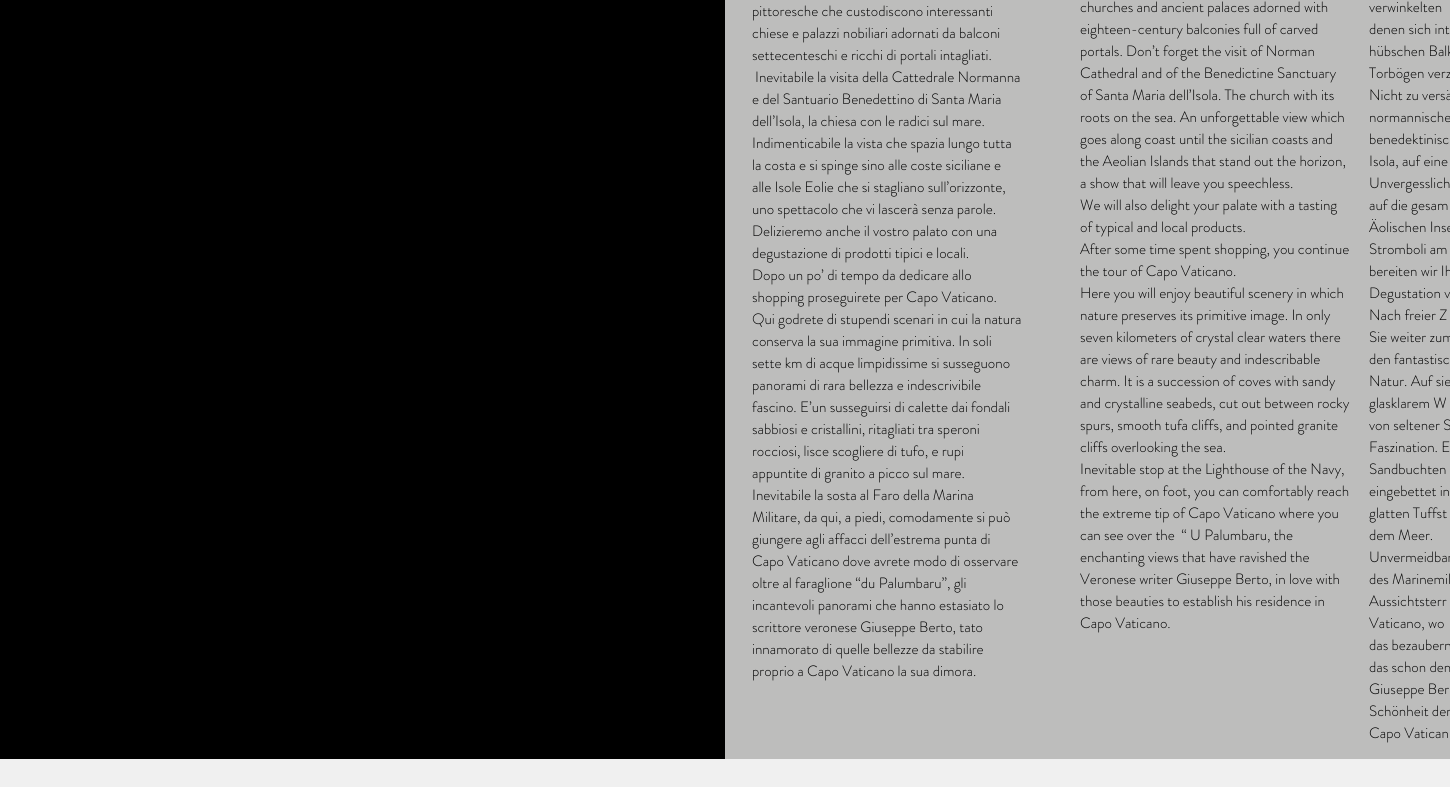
import math
import cairo


def draw(ctx):
	ctx.set_source_rgb(0.941, 0.941, 0.941)
	ctx.paint()
	ctx.set_source_rgb(0, 0, 0)
	ctx.rectangle(0, 0, 725, 759)
	ctx.fill()
	ctx.set_source_rgb(0.741, 0.741, 0.737)
	ctx.rectangle(725, 0, 725, 759)
	ctx.fill()
	ctx.select_font_face('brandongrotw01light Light')
	ctx.set_font_size(15)
	ctx.set_source_rgb(0, 0, 0)
	for x, y, s in [
		(752, 16, 'pittoresche che custodiscono interessanti'),
		(752, 38, 'chiese e palazzi nobiliari adornati da balconi'),
		(752, 60, 'settecenteschi e ricchi di portali intagliati.'),
		(755, 82, 'Inevitabile la visita della Cattedrale Normanna'),
		(752, 104, 'e del Santuario Benedettino di Santa Maria'),
		(752, 126, 'dell’Isola, la chiesa con le radici sul mare.'),
		(752, 148, 'Indimenticabile la vista che spazia lungo tutta'),
		(752, 170, 'la costa e si spinge sino alle coste siciliane e'),
		(752, 192, 'alle Isole Eolie che si stagliano sull’orizzonte,'),
		(752, 214, 'uno spettacolo che vi lascerà senza parole.'),
		(752, 236, 'Delizieremo anche il vostro palato con una'),
		(752, 258, 'degustazione di prodotti tipici e locali.'),
		(752, 280, 'Dopo un po’ di tempo da dedicare allo'),
		(752, 302, 'shopping proseguirete per Capo Vaticano.'),
		(752, 324, 'Qui godrete di stupendi scenari in cui la natura'),
		(752, 346, 'conserva la sua immagine primitiva. In soli'),
		(752, 368, 'sette km di acque limpidissime si susseguono'),
		(752, 390, 'panorami di rara bellezza e indescrivibile'),
		(752, 412, 'fascino. E’un susseguirsi di calette dai fondali'),
		(752, 434, 'sabbiosi e cristallini, ritagliati tra speroni'),
		(752, 456, 'rocciosi, lisce scogliere di tufo, e rupi'),
		(752, 478, 'appuntite di granito a picco sul mare.'),
		(752, 500, 'Inevitabile la sosta al Faro della Marina'),
		(752, 522, 'Militare, da qui, a piedi, comodamente si può'),
		(752, 544, 'giungere agli affacci dell’estrema punta di'),
		(752, 566, 'Capo Vaticano dove avrete modo di osservare'),
		(752, 588, 'oltre al faraglione “du Palumbaru”, gli'),
		(752, 610, 'incantevoli panorami che hanno estasiato lo'),
		(752, 632, 'scrittore veronese Giuseppe Berto, tato'),
		(752, 654, 'innamorato di quelle bellezze da stabilire'),
		(752, 676, 'proprio a Capo Vaticano la sua dimora.'),
		(1080, 12, 'churches and ancient palaces adorned with'),
		(1080, 34, 'eighteen-century balconies full of carved'),
		(1080, 56, 'portals. Don’t forget the visit of Norman'),
		(1080, 78, 'Cathedral and of the Benedictine Sanctuary'),
		(1080, 100, 'of Santa Maria dell’Isola. The church with its'),
		(1080, 122, 'roots on the sea. An unforgettable view which'),
		(1080, 144, 'goes along coast until the sicilian coasts and'),
		(1080, 166, 'the Aeolian Islands that stand out the horizon,'),
		(1080, 188, 'a show that will leave you speechless.'),
		(1080, 210, 'We will also delight your palate with a tasting'),
		(1080, 232, 'of typical and local products.'),
		(1080, 254, 'After some time spent shopping, you continue'),
		(1080, 276, 'the tour of Capo Vaticano.'),
		(1080, 298, 'Here you will enjoy beautiful scenery in which'),
		(1080, 320, 'nature preserves its primitive image. In only'),
		(1080, 342, 'seven kilometers of crystal clear waters there'),
		(1080, 364, 'are views of rare beauty and indescribable'),
		(1080, 386, 'charm. It is a succession of coves with sandy'),
		(1080, 408, 'and crystalline seabeds, cut out between rocky'),
		(1080, 430, 'spurs, smooth tufa cliffs, and pointed granite'),
		(1080, 452, 'cliffs overlooking the sea.'),
		(1080, 474, 'Inevitable stop at the Lighthouse of the Navy,'),
		(1080, 496, 'from here, on foot, you can comfortably reach'),
		(1080, 518, 'the extreme tip of Capo Vaticano where you'),
		(1080, 540, 'can see over the  “ U Palumbaru, the'),
		(1080, 562, 'enchanting views that have ravished the'),
		(1080, 584, 'Veronese writer Giuseppe Berto, in love with'),
		(1080, 606, 'those beauties to establish his residence in'),
		(1080, 628, 'Capo Vaticano.'),
		(1369, 12, 'verwinkelten'),
		(1369, 34, 'denen sich int'),
		(1369, 56, 'hübschen Balk'),
		(1369, 78, 'Torbögen verz'),
		(1369, 100, 'Nicht zu versä'),
		(1369, 122, 'normannische'),
		(1369, 144, 'benedektinisc'),
		(1369, 166, 'Isola, auf eine'),
		(1369, 188, 'Unvergesslich'),
		(1369, 210, 'auf die gesam'),
		(1369, 232, 'Äolischen Inse'),
		(1369, 254, 'Stromboli am'),
		(1369, 276, 'bereiten wir Ih'),
		(1369, 298, 'Degustation v'),
		(1369, 320, 'Nach freier Z'),
		(1369, 342, 'Sie weiter zum'),
		(1369, 364, 'den fantastisc'),
		(1369, 386, 'Natur. Auf sie'),
		(1369, 408, 'glasklarem W'),
		(1369, 430, 'von seltener S'),
		(1369, 452, 'Faszination. E'),
		(1369, 474, 'Sandbuchten'),
		(1369, 496, 'eingebettet in'),
		(1369, 518, 'glatten Tuffst'),
		(1369, 540, 'dem Meer.'),
		(1369, 562, 'Unvermeidbar'),
		(1369, 584, 'des Marinemil'),
		(1369, 606, 'Aussichtsterr'),
		(1369, 628, 'Vaticano, wo'),
		(1369, 650, 'das bezaubern'),
		(1369, 672, 'das schon den'),
		(1369, 694, 'Giuseppe Ber'),
		(1369, 716, 'Schönheit der'),
		(1369, 738, 'Capo Vatican'),
	]:
		ctx.move_to(x, y)
		ctx.show_text(s)


surface = cairo.ImageSurface(cairo.FORMAT_RGB24, 1450, 787)
ctx = cairo.Context(surface)
options = cairo.FontOptions()
options.set_hint_metrics(cairo.HINT_METRICS_OFF)
options.set_hint_style(cairo.HINT_STYLE_NONE)
ctx.set_font_options(options)
ctx.set_miter_limit(4)
draw(ctx)
surface.write_to_png('image.png')
